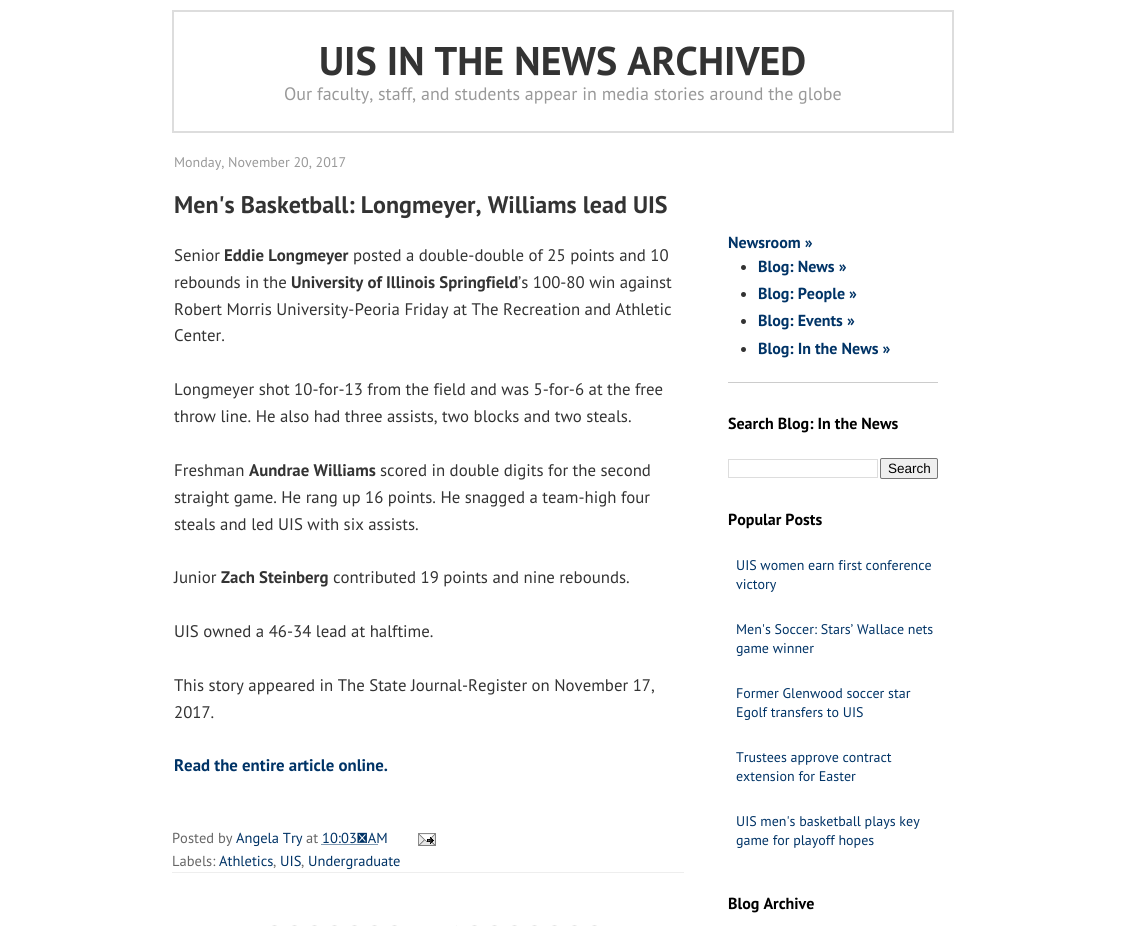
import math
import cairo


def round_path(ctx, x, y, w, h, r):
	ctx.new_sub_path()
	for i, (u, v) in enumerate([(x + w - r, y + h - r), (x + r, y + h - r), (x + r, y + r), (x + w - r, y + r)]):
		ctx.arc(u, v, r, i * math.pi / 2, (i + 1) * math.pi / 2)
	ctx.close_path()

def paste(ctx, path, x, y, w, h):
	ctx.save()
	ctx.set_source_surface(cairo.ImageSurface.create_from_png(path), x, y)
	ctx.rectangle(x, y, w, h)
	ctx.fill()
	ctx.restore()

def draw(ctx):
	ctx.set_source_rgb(1, 1, 1)
	ctx.paint()
	ctx.rectangle(173, 11, 780, 121)
	ctx.set_source_rgb(0.867, 0.867, 0.867)
	ctx.stroke()
	ctx.select_font_face('PT Sans', cairo.FONT_SLANT_NORMAL, cairo.FONT_WEIGHT_BOLD)
	ctx.set_font_size(40)
	ctx.set_source_rgb(0.2, 0.2, 0.2)
	ctx.move_to(319, 75)
	ctx.show_text('UIS IN THE NEWS ARCHIVED')
	ctx.select_font_face('PT Sans')
	ctx.set_font_size(18)
	ctx.set_source_rgb(0.6, 0.6, 0.6)
	ctx.move_to(284, 100)
	ctx.show_text('Our faculty, staff, and students appear in media stories around the globe')
	ctx.set_font_size(14)
	ctx.move_to(174, 167)
	ctx.show_text('Monday, November 20, 2017')
	ctx.select_font_face('PT Sans', cairo.FONT_SLANT_NORMAL, cairo.FONT_WEIGHT_BOLD)
	ctx.set_font_size(24)
	ctx.set_source_rgb(0.2, 0.2, 0.2)
	ctx.move_to(174, 213)
	ctx.show_text('Men\'s Basketball: Longmeyer, Williams lead UIS')
	ctx.select_font_face('PT Sans')
	ctx.set_font_size(16.8)
	ctx.move_to(174, 261)
	ctx.show_text('Senior')
	ctx.select_font_face('PT Sans', cairo.FONT_SLANT_NORMAL, cairo.FONT_WEIGHT_BOLD)
	ctx.move_to(224, 261)
	ctx.show_text('Eddie Longmeyer')
	ctx.select_font_face('PT Sans')
	ctx.move_to(353, 261)
	ctx.show_text('posted a double-double of 25 points and 10')
	ctx.move_to(174, 288)
	ctx.show_text('rebounds in the')
	ctx.select_font_face('PT Sans', cairo.FONT_SLANT_NORMAL, cairo.FONT_WEIGHT_BOLD)
	ctx.move_to(291, 288)
	ctx.show_text('University of Illinois Springfield')
	ctx.select_font_face('PT Sans')
	for x, y, s in [
		(518, 288, '’s 100-80 win against'),
		(174, 315, 'Robert Morris University-Peoria Friday at The Recreation and Athletic'),
		(174, 341, 'Center.'),
		(174, 395, 'Longmeyer shot 10-for-13 from the field and was 5-for-6 at the free'),
		(174, 422, 'throw line. He also had three assists, two blocks and two steals.'),
		(174, 476, 'Freshman'),
	]:
		ctx.move_to(x, y)
		ctx.show_text(s)
	ctx.select_font_face('PT Sans', cairo.FONT_SLANT_NORMAL, cairo.FONT_WEIGHT_BOLD)
	ctx.move_to(249, 476)
	ctx.show_text('Aundrae Williams')
	ctx.select_font_face('PT Sans')
	for x, y, s in [
		(380, 476, 'scored in double digits for the second'),
		(174, 503, 'straight game. He rang up 16 points. He snagged a team-high four'),
		(174, 530, 'steals and led UIS with six assists.'),
		(174, 583, 'Junior'),
	]:
		ctx.move_to(x, y)
		ctx.show_text(s)
	ctx.select_font_face('PT Sans', cairo.FONT_SLANT_NORMAL, cairo.FONT_WEIGHT_BOLD)
	ctx.move_to(221, 583)
	ctx.show_text('Zach Steinberg')
	ctx.select_font_face('PT Sans')
	for x, y, s in [
		(333, 583, 'contributed 19 points and nine rebounds.'),
		(174, 637, 'UIS owned a 46-34 lead at halftime.'),
		(174, 691, 'This story appeared in The State Journal-Register on November 17,'),
		(174, 718, '2017.'),
	]:
		ctx.move_to(x, y)
		ctx.show_text(s)
	ctx.select_font_face('PT Sans', cairo.FONT_SLANT_NORMAL, cairo.FONT_WEIGHT_BOLD)
	ctx.set_source_rgb(0, 0.2, 0.4)
	ctx.move_to(174, 771)
	ctx.show_text('Read the entire article online.')
	ctx.set_source_rgb(0.933, 0.933, 0.933)
	ctx.rectangle(172, 872, 512, 1)
	ctx.fill()
	ctx.select_font_face('PT Sans')
	ctx.set_font_size(14.5)
	ctx.set_source_rgb(0.4, 0.4, 0.4)
	ctx.move_to(172, 843)
	ctx.show_text('Posted by')
	ctx.set_source_rgb(0, 0.2, 0.4)
	ctx.move_to(236, 843)
	ctx.show_text('Angela Try')
	ctx.set_source_rgb(0.4, 0.4, 0.4)
	ctx.move_to(306, 843)
	ctx.show_text('at')
	ctx.set_source_rgb(0, 0.2, 0.4)
	ctx.move_to(322, 843)
	ctx.show_text('10:03 AM')
	ctx.new_path()
	ctx.move_to(321.5, 844.5)
	ctx.line_to(378, 844.5)
	ctx.set_line_width(1)
	ctx.set_dash([1, 1])
	ctx.stroke()
	paste(ctx, 'media/1.png', 418, 833, 18, 13)
	ctx.set_source_rgb(0.4, 0.4, 0.4)
	ctx.move_to(172, 866)
	ctx.show_text('Labels:')
	ctx.set_source_rgb(0, 0.2, 0.4)
	ctx.move_to(219, 866)
	ctx.show_text('Athletics')
	ctx.set_source_rgb(0.4, 0.4, 0.4)
	ctx.move_to(273, 866)
	ctx.show_text(',')
	ctx.set_source_rgb(0, 0.2, 0.4)
	ctx.move_to(280, 866)
	ctx.show_text('UIS')
	ctx.set_source_rgb(0.4, 0.4, 0.4)
	ctx.move_to(301, 866)
	ctx.show_text(',')
	ctx.set_source_rgb(0, 0.2, 0.4)
	ctx.move_to(308, 866)
	ctx.show_text('Undergraduate')
	paste(ctx, 'media/2.png', 272, 925, 325, 1)
	ctx.set_source_rgb(1, 1, 1)
	ctx.rectangle(406, 925, 50, 1)
	ctx.fill()
	ctx.select_font_face('PT Sans', cairo.FONT_SLANT_NORMAL, cairo.FONT_WEIGHT_BOLD)
	ctx.set_font_size(16)
	ctx.set_source_rgb(0, 0.2, 0.4)
	ctx.move_to(728, 248)
	ctx.show_text('Newsroom »')
	ctx.set_source_rgb(0.8, 0.8, 0.8)
	ctx.rectangle(728, 382, 210, 1)
	ctx.fill()
	ctx.set_source_rgb(0.2, 0.2, 0.2)
	ctx.arc(743.5, 267.5, 2.5, 0, 2 * math.pi)
	ctx.fill()
	ctx.set_source_rgb(0, 0.2, 0.4)
	ctx.move_to(758, 272)
	ctx.show_text('Blog: News »')
	ctx.set_source_rgb(0.2, 0.2, 0.2)
	ctx.new_path()
	ctx.arc(743.5, 294.5, 2.5, 0, 2 * math.pi)
	ctx.fill()
	ctx.set_source_rgb(0, 0.2, 0.4)
	ctx.move_to(758, 299)
	ctx.show_text('Blog: People »')
	ctx.set_source_rgb(0.2, 0.2, 0.2)
	ctx.new_path()
	ctx.arc(743.5, 321.5, 2.5, 0, 2 * math.pi)
	ctx.fill()
	ctx.set_source_rgb(0, 0.2, 0.4)
	ctx.move_to(758, 326)
	ctx.show_text('Blog: Events »')
	ctx.set_source_rgb(0.2, 0.2, 0.2)
	ctx.new_path()
	ctx.arc(743.5, 349.5, 2.5, 0, 2 * math.pi)
	ctx.fill()
	ctx.set_source_rgb(0, 0.2, 0.4)
	ctx.move_to(758, 354)
	ctx.show_text('Blog: In the News »')
	ctx.set_source_rgb(0, 0, 0)
	ctx.move_to(728, 429)
	ctx.show_text('Search Blog: In the News')
	ctx.rectangle(728.5, 459.5, 149, 18)
	ctx.set_source_rgb(0.867, 0.867, 0.867)
	ctx.set_dash([])
	ctx.stroke()
	ctx.set_source_rgb(0.937, 0.937, 0.937)
	round_path(ctx, 880.5, 458.5, 57, 20, 1.5)
	ctx.fill_preserve()
	ctx.set_source_rgb(0.463, 0.463, 0.463)
	ctx.stroke()
	ctx.select_font_face('Liberation Sans')
	ctx.set_font_size(13.5)
	ctx.set_source_rgb(0, 0, 0)
	ctx.move_to(888, 473)
	ctx.show_text('Search')
	ctx.select_font_face('PT Sans', cairo.FONT_SLANT_NORMAL, cairo.FONT_WEIGHT_BOLD)
	ctx.set_font_size(16)
	ctx.move_to(728, 525)
	ctx.show_text('Popular Posts')
	ctx.select_font_face('PT Sans')
	ctx.set_font_size(14)
	ctx.set_source_rgb(0, 0.2, 0.4)
	for x, y, s in [
		(736, 570, 'UIS women earn first conference'),
		(736, 589, 'victory'),
		(736, 634, 'Men\'s Soccer: Stars’ Wallace nets'),
		(736, 653, 'game winner'),
		(736, 698, 'Former Glenwood soccer star'),
		(736, 717, 'Egolf transfers to UIS'),
		(736, 762, 'Trustees approve contract'),
		(736, 781, 'extension for Easter'),
		(736, 826, 'UIS men\'s basketball plays key'),
		(736, 845, 'game for playoff hopes'),
	]:
		ctx.move_to(x, y)
		ctx.show_text(s)
	ctx.select_font_face('PT Sans', cairo.FONT_SLANT_NORMAL, cairo.FONT_WEIGHT_BOLD)
	ctx.set_font_size(16)
	ctx.set_source_rgb(0, 0, 0)
	ctx.move_to(728, 909)
	ctx.show_text('Blog Archive')


surface = cairo.ImageSurface(cairo.FORMAT_RGB24, 1126, 926)
ctx = cairo.Context(surface)
options = cairo.FontOptions()
options.set_hint_metrics(cairo.HINT_METRICS_OFF)
options.set_hint_style(cairo.HINT_STYLE_NONE)
ctx.set_font_options(options)
ctx.set_miter_limit(4)
draw(ctx)
surface.write_to_png('image.png')
